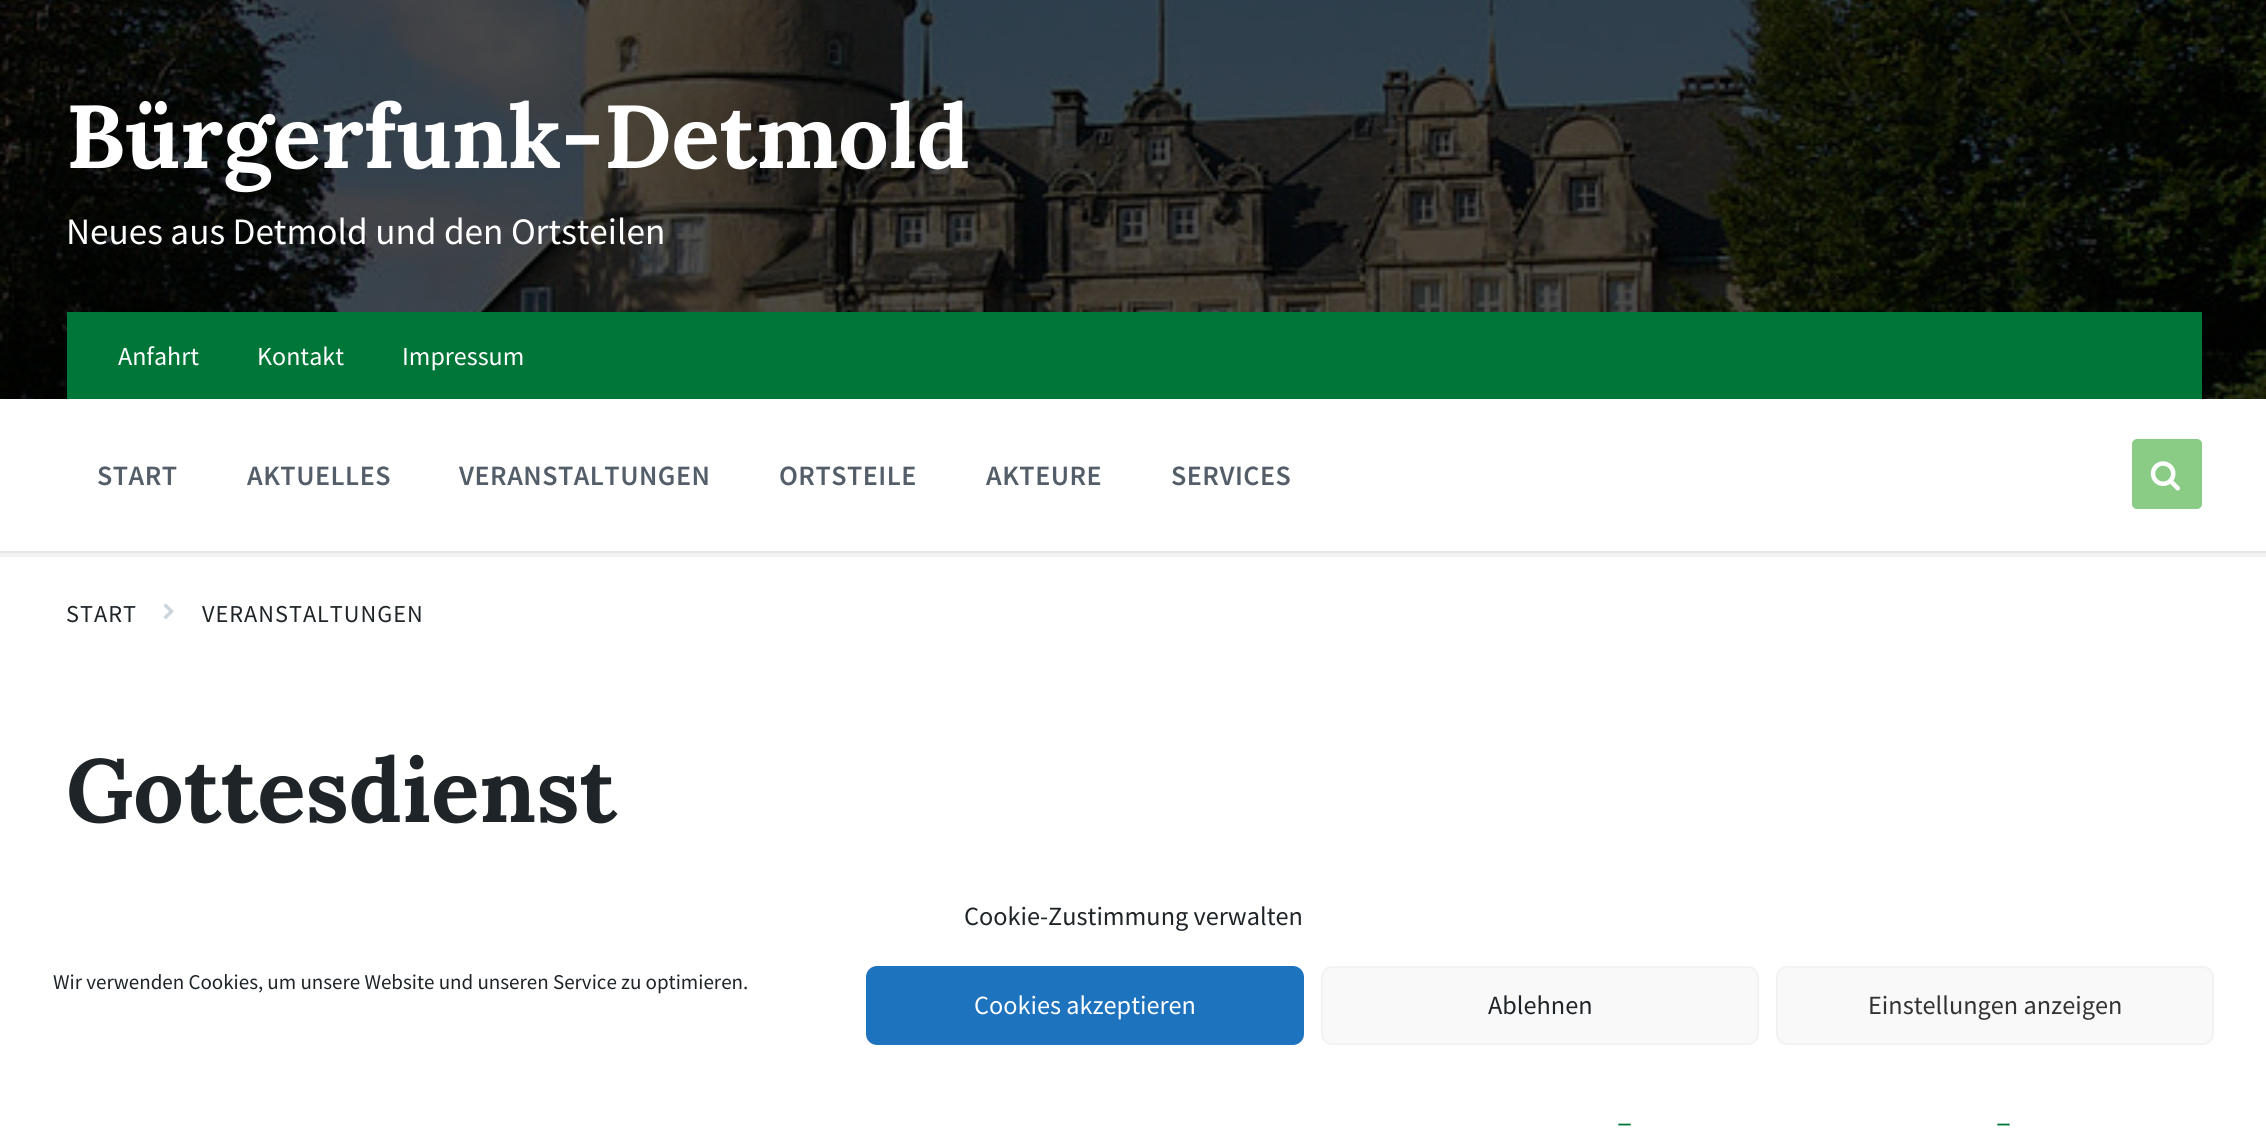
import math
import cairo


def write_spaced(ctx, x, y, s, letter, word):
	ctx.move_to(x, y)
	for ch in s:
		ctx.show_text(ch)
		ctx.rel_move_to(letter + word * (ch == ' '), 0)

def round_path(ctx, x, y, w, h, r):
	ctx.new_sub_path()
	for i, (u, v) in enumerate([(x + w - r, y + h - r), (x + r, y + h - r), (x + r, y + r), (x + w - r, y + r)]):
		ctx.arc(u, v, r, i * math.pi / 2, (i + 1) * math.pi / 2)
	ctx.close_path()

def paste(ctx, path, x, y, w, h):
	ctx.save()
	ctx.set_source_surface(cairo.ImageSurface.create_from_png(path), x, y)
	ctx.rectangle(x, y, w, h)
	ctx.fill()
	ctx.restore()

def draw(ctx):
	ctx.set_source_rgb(1, 1, 1)
	ctx.paint()
	ctx.rectangle(-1, 398, 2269, 157)
	ctx.set_source_rgb(0.949, 0.949, 0.949)
	ctx.set_line_width(4)
	ctx.stroke()
	paste(ctx, 'media/1.png', 0, 0, 2266, 399)
	ctx.select_font_face('Lora', cairo.FONT_SLANT_NORMAL, cairo.FONT_WEIGHT_BOLD)
	ctx.set_font_size(89.25)
	ctx.set_source_rgb(1, 1, 1)
	ctx.move_to(66, 168)
	ctx.show_text('Bürgerfunk-Detmold')
	ctx.select_font_face('Source Sans Pro')
	ctx.set_font_size(37.25)
	ctx.move_to(66, 244)
	ctx.show_text('Neues aus Detmold und den Ortsteilen')
	ctx.set_source_rgb(0, 0.467, 0.22)
	ctx.rectangle(67, 312, 2135, 87)
	ctx.fill()
	ctx.set_font_size(26)
	ctx.set_source_rgb(1, 1, 1)
	for x, y, s in [
		(118, 365, 'Anfahrt'),
		(257, 365, 'Kontakt'),
		(402, 365, 'Impressum'),
	]:
		ctx.move_to(x, y)
		ctx.show_text(s)
	ctx.rectangle(0, 399, 2266, 152)
	ctx.fill()
	ctx.set_source_rgb(0.902, 0.902, 0.902)
	ctx.rectangle(0, 551, 2266, 2)
	ctx.fill()
	ctx.select_font_face('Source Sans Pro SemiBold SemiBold')
	ctx.set_font_size(28)
	ctx.set_source_rgb(0.329, 0.369, 0.412)
	for x, y, s in [
		(97, 485, 'START'),
		(247, 485, 'AKTUELLES'),
		(459, 485, 'VERANSTALTUNGEN'),
		(779, 485, 'ORTSTEILE'),
		(986, 485, 'AKTEURE'),
		(1171, 485, 'SERVICES'),
	]:
		write_spaced(ctx, x, y, s, 0.5, 0)
	ctx.set_source_rgb(0.541, 0.8, 0.525)
	round_path(ctx, 2132, 439, 70, 70, 5)
	ctx.fill()
	paste(ctx, 'media/2.png', 2150, 461, 30, 30)
	ctx.select_font_face('Source Sans Pro')
	ctx.set_font_size(24.25)
	ctx.set_source_rgb(0.118, 0.141, 0.153)
	write_spaced(ctx, 66, 622, 'START', 1, 0)
	paste(ctx, 'media/3.png', 163, 603, 11, 17)
	write_spaced(ctx, 202, 622, 'VERANSTALTUNGEN', 1, 0)
	ctx.select_font_face('Lora', cairo.FONT_SLANT_NORMAL, cairo.FONT_WEIGHT_BOLD)
	ctx.set_font_size(89.25)
	ctx.move_to(66, 822)
	ctx.show_text('Gottesdienst')
	ctx.select_font_face('Source Sans Pro SemiBold SemiBold')
	ctx.set_font_size(26)
	ctx.set_source_rgb(0, 0.467, 0.22)
	ctx.move_to(1618, 1122)
	ctx.show_text('_')
	ctx.move_to(1997, 1122)
	ctx.show_text('_')
	ctx.select_font_face('Source Sans Pro')
	ctx.set_font_size(26.25)
	ctx.set_source_rgb(0.118, 0.141, 0.153)
	ctx.move_to(964, 925)
	ctx.show_text('Cookie-Zustimmung verwalten')
	ctx.set_font_size(21)
	ctx.move_to(53, 989)
	ctx.show_text('Wir verwenden Cookies, um unsere Website und unseren Service zu optimieren.')
	ctx.set_source_rgb(0.118, 0.451, 0.745)
	round_path(ctx, 867, 967, 436, 77, 10)
	ctx.fill_preserve()
	ctx.set_line_width(2)
	ctx.stroke()
	ctx.set_font_size(26.25)
	ctx.set_source_rgb(1, 1, 1)
	ctx.move_to(974, 1014)
	ctx.show_text('Cookies akzeptieren')
	ctx.set_source_rgb(0.976, 0.976, 0.976)
	round_path(ctx, 1322, 967, 436, 77, 10)
	ctx.fill_preserve()
	ctx.set_source_rgb(0.949, 0.949, 0.949)
	ctx.stroke()
	ctx.set_source_rgb(0.118, 0.141, 0.153)
	ctx.move_to(1488, 1014)
	ctx.show_text('Ablehnen')
	ctx.set_source_rgb(0.976, 0.976, 0.976)
	round_path(ctx, 1777, 967, 436, 77, 10)
	ctx.fill_preserve()
	ctx.set_source_rgb(0.949, 0.949, 0.949)
	ctx.stroke()
	ctx.set_source_rgb(0.2, 0.2, 0.2)
	ctx.move_to(1868, 1014)
	ctx.show_text('Einstellungen anzeigen')


surface = cairo.ImageSurface(cairo.FORMAT_RGB24, 2266, 1135)
ctx = cairo.Context(surface)
options = cairo.FontOptions()
options.set_hint_metrics(cairo.HINT_METRICS_OFF)
options.set_hint_style(cairo.HINT_STYLE_NONE)
ctx.set_font_options(options)
ctx.set_miter_limit(4)
draw(ctx)
surface.write_to_png('image.png')
